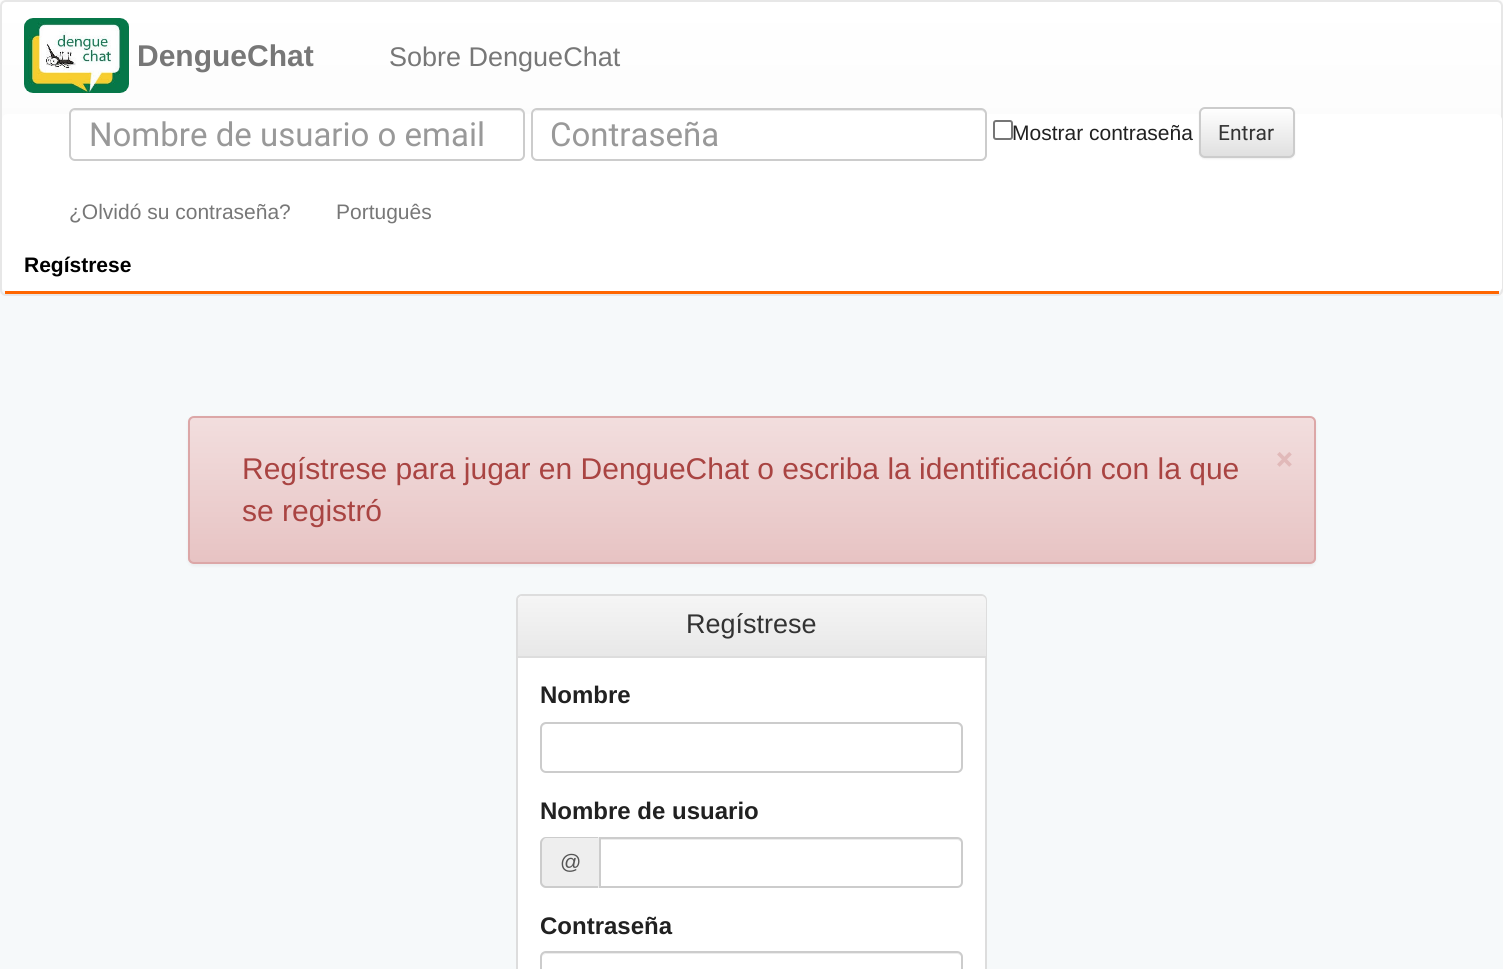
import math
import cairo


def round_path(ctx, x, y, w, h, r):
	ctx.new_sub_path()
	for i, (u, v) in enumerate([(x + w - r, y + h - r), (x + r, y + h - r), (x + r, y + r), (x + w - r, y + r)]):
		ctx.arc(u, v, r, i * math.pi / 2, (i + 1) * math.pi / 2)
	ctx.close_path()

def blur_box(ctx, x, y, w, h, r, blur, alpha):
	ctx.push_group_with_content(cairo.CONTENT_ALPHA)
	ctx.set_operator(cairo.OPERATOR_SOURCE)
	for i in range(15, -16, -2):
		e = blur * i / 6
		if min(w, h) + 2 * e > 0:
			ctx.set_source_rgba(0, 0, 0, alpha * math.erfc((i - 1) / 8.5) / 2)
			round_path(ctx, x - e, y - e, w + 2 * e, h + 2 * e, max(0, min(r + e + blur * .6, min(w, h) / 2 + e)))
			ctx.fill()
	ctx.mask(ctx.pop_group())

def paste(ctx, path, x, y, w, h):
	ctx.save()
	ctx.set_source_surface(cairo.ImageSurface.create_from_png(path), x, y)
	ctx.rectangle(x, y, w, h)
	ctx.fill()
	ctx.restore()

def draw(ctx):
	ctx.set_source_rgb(1, 1, 1)
	ctx.paint()
	ctx.set_source_rgb(0, 0, 0)
	blur_box(ctx, 0, 2, 1503, 295, 6, 4, 0.07)
	ctx.save()
	round_path(ctx, 0, 0, 1503, 296, 6)
	ctx.clip()
	gradient = cairo.LinearGradient(752, 1.5, 752, 294)
	gradient.add_color_stop_rgba(0, 1, 1, 1, 1)
	gradient.add_color_stop_rgba(1, 0.973, 0.973, 0.973, 1)
	ctx.set_source(gradient)
	ctx.rectangle(0, 2, 1503, 292)
	ctx.fill()
	ctx.restore()
	round_path(ctx, 1, 1, 1501, 294, 5)
	ctx.set_source_rgb(0.906, 0.906, 0.906)
	ctx.stroke()
	paste(ctx, 'media/1.png', 24, 18, 105, 75)
	ctx.select_font_face('Liberation Sans', cairo.FONT_SLANT_NORMAL, cairo.FONT_WEIGHT_BOLD)
	ctx.set_font_size(30)
	ctx.set_source_rgb(0.467, 0.467, 0.467)
	ctx.move_to(137, 66)
	ctx.show_text('DengueChat')
	ctx.select_font_face('Liberation Sans')
	ctx.set_font_size(27)
	ctx.move_to(389, 66)
	ctx.show_text('Sobre DengueChat')
	ctx.set_source_rgb(1, 1, 1)
	ctx.new_path()
	ctx.move_to(8, 114)
	ctx.line_to(1496, 114)
	ctx.curve_to(1499, 114, 1502, 117, 1502, 120)
	ctx.line_to(1502, 288)
	ctx.curve_to(1502, 290, 1499, 291, 1496, 291)
	ctx.line_to(8, 291)
	ctx.curve_to(4, 291, 2, 290, 2, 288)
	ctx.line_to(2, 120)
	ctx.curve_to(2, 117, 4, 114, 8, 114)
	ctx.close_path()
	ctx.fill()
	round_path(ctx, 69, 108, 456, 53, 6)
	ctx.fill()
	ctx.set_source_rgb(0.925, 0.925, 0.925)
	ctx.new_path()
	ctx.move_to(75, 111)
	ctx.line_to(519, 111)
	ctx.curve_to(521, 111, 524, 113, 524, 116)
	ctx.line_to(524, 115)
	ctx.curve_to(524, 112, 522, 110, 519, 110)
	ctx.line_to(76, 110)
	ctx.curve_to(74, 110, 73, 111, 72, 112)
	ctx.close_path()
	ctx.fill()
	round_path(ctx, 70, 109, 454, 51, 5)
	ctx.set_source_rgb(0.8, 0.8, 0.8)
	ctx.stroke()
	ctx.select_font_face('Roboto')
	ctx.set_font_size(33)
	ctx.set_source_rgb(0.6, 0.6, 0.6)
	ctx.move_to(89, 146)
	ctx.show_text('Nombre de usuario o email')
	ctx.set_source_rgb(1, 1, 1)
	round_path(ctx, 531, 108, 456, 53, 6)
	ctx.fill()
	ctx.set_source_rgb(0.925, 0.925, 0.925)
	ctx.new_path()
	ctx.move_to(537, 111)
	ctx.line_to(981, 111)
	ctx.curve_to(983, 111, 986, 113, 986, 116)
	ctx.line_to(986, 115)
	ctx.curve_to(986, 112, 984, 110, 981, 110)
	ctx.line_to(538, 110)
	ctx.curve_to(536, 110, 535, 111, 534, 112)
	ctx.close_path()
	ctx.fill()
	round_path(ctx, 532, 109, 454, 51, 5)
	ctx.set_source_rgb(0.8, 0.8, 0.8)
	ctx.stroke()
	ctx.set_source_rgb(0.6, 0.6, 0.6)
	ctx.move_to(550, 146)
	ctx.show_text('Contraseña')
	round_path(ctx, 994, 121, 18, 18, 2)
	ctx.set_source_rgb(0.463, 0.463, 0.463)
	ctx.stroke()
	ctx.select_font_face('Liberation Sans')
	ctx.set_font_size(21)
	ctx.set_source_rgb(0.129, 0.129, 0.129)
	ctx.move_to(1012, 140)
	ctx.show_text('Mostrar contraseña')
	ctx.set_source_rgb(0, 0, 0)
	blur_box(ctx, 1199, 108, 96, 51, 6, 1, 0.07)
	ctx.save()
	round_path(ctx, 1199, 107, 96, 51, 6)
	ctx.clip()
	gradient = cairo.LinearGradient(1247, 108, 1247, 156)
	gradient.add_color_stop_rgba(0, 1, 1, 1, 1)
	gradient.add_color_stop_rgba(1, 0.878, 0.878, 0.878, 1)
	ctx.set_source(gradient)
	ctx.rectangle(1199, 108, 96, 48)
	ctx.fill()
	ctx.restore()
	ctx.set_source_rgb(1, 1, 1)
	ctx.new_path()
	ctx.move_to(1204, 110)
	ctx.line_to(1288, 110)
	ctx.curve_to(1291, 110, 1293, 112, 1293, 114)
	ctx.curve_to(1293, 105, 1280, 108, 1274, 108)
	ctx.line_to(1219, 108)
	ctx.curve_to(1213, 108, 1200, 105, 1200, 114)
	ctx.curve_to(1200, 112, 1202, 110, 1204, 110)
	ctx.close_path()
	ctx.fill()
	round_path(ctx, 1200, 108, 94, 49, 5)
	ctx.set_source_rgb(0.8, 0.8, 0.8)
	ctx.stroke()
	ctx.select_font_face('Roboto')
	ctx.set_source_rgb(0.2, 0.2, 0.2)
	ctx.move_to(1218, 140)
	ctx.show_text('Entrar')
	ctx.select_font_face('Liberation Sans')
	ctx.set_source_rgb(0.467, 0.467, 0.467)
	ctx.move_to(69, 219)
	ctx.show_text('¿Olvidó su contraseña?')
	ctx.move_to(336, 219)
	ctx.show_text('Português')
	ctx.set_source_rgb(1, 0.4, 0)
	ctx.rectangle(5, 291, 1494, 3)
	ctx.fill()
	ctx.select_font_face('Liberation Sans', cairo.FONT_SLANT_NORMAL, cairo.FONT_WEIGHT_BOLD)
	ctx.set_source_rgb(0, 0, 0)
	ctx.move_to(24, 272)
	ctx.show_text('Regístrese')
	ctx.set_source_rgb(0.961, 0.973, 0.98)
	ctx.rectangle(0, 296, 1503, 673)
	ctx.fill()
	ctx.set_source_rgb(0, 0, 0)
	blur_box(ctx, 188, 417, 1128, 149, 6, 1.5, 0.05)
	ctx.save()
	round_path(ctx, 188, 416, 1128, 148, 6)
	ctx.clip()
	gradient = cairo.LinearGradient(752, 417, 752, 563)
	gradient.add_color_stop_rgba(0, 0.949, 0.871, 0.871, 1)
	gradient.add_color_stop_rgba(1, 0.906, 0.765, 0.765, 1)
	ctx.set_source(gradient)
	ctx.rectangle(188, 417, 1128, 146)
	ctx.fill()
	ctx.restore()
	ctx.set_source_rgb(0.961, 0.902, 0.902)
	ctx.new_path()
	ctx.move_to(194, 418)
	ctx.line_to(1310, 418)
	ctx.curve_to(1312, 418, 1314, 421, 1314, 423)
	ctx.curve_to(1314, 420, 1312, 417, 1309, 417)
	ctx.line_to(194, 417)
	ctx.curve_to(191, 417, 189, 420, 189, 423)
	ctx.curve_to(189, 421, 191, 418, 194, 418)
	ctx.close_path()
	ctx.fill()
	round_path(ctx, 189, 417, 1126, 146, 5)
	ctx.set_source_rgb(0.863, 0.655, 0.655)
	ctx.stroke()
	ctx.select_font_face('Liberation Sans')
	ctx.set_font_size(30)
	ctx.set_source_rgb(0.663, 0.267, 0.259)
	ctx.move_to(242, 479)
	ctx.show_text('Regístrese para jugar en DengueChat o escriba la identificación con la que')
	ctx.select_font_face('Roboto', cairo.FONT_SLANT_NORMAL, cairo.FONT_WEIGHT_BOLD)
	ctx.set_font_size(32)
	ctx.set_source_rgb(0.882, 0.725, 0.725)
	ctx.move_to(1276, 470)
	ctx.show_text('×')
	ctx.select_font_face('Liberation Sans')
	ctx.set_font_size(30)
	ctx.set_source_rgb(0.663, 0.267, 0.259)
	ctx.move_to(242, 521)
	ctx.show_text('se registró')
	ctx.set_source_rgb(1, 1, 1)
	round_path(ctx, 517, 595, 469, 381, 5)
	ctx.fill_preserve()
	ctx.set_source_rgb(0.867, 0.867, 0.867)
	ctx.stroke()
	gradient = cairo.LinearGradient(752, 596, 752, 656)
	gradient.add_color_stop_rgba(0, 0.961, 0.961, 0.961, 1)
	gradient.add_color_stop_rgba(1, 0.91, 0.91, 0.91, 1)
	ctx.set_source(gradient)
	ctx.new_path()
	ctx.move_to(523, 596)
	ctx.line_to(981, 596)
	ctx.curve_to(984, 596, 986, 598, 986, 601)
	ctx.line_to(986, 656)
	ctx.line_to(518, 656)
	ctx.line_to(518, 601)
	ctx.curve_to(518, 598, 520, 596, 523, 596)
	ctx.close_path()
	ctx.fill()
	ctx.set_source_rgb(0.867, 0.867, 0.867)
	ctx.rectangle(518, 656, 468, 2)
	ctx.fill()
	ctx.set_font_size(27)
	ctx.set_source_rgb(0.2, 0.2, 0.2)
	ctx.move_to(686, 633)
	ctx.show_text('Regístrese')
	ctx.select_font_face('Liberation Sans', cairo.FONT_SLANT_NORMAL, cairo.FONT_WEIGHT_BOLD)
	ctx.set_font_size(24)
	ctx.set_source_rgb(0.129, 0.129, 0.129)
	ctx.move_to(540, 703)
	ctx.show_text('Nombre')
	ctx.set_source_rgb(0.925, 0.925, 0.925)
	ctx.new_path()
	ctx.move_to(546, 724)
	ctx.line_to(957, 724)
	ctx.curve_to(959, 724, 962, 727, 962, 729)
	ctx.curve_to(962, 726, 960, 723, 957, 723)
	ctx.line_to(547, 723)
	ctx.curve_to(544, 723, 542, 726, 542, 729)
	ctx.curve_to(542, 727, 544, 724, 546, 724)
	ctx.close_path()
	ctx.fill()
	round_path(ctx, 541, 723, 421, 49, 5)
	ctx.set_source_rgb(0.8, 0.8, 0.8)
	ctx.stroke()
	ctx.set_source_rgb(0.129, 0.129, 0.129)
	ctx.move_to(540, 819)
	ctx.show_text('Nombre de usuario')
	ctx.set_source_rgb(0.933, 0.933, 0.933)
	ctx.new_path()
	ctx.move_to(546, 837)
	ctx.line_to(599, 837)
	ctx.line_to(599, 888)
	ctx.line_to(546, 888)
	ctx.curve_to(542.5, 888, 540, 885.5, 540, 882)
	ctx.line_to(540, 843)
	ctx.curve_to(540, 839.5, 542.5, 837, 546, 837)
	ctx.close_path()
	ctx.fill()
	ctx.set_source_rgb(0.8, 0.8, 0.8)
	ctx.set_fill_rule(cairo.FILL_RULE_EVEN_ODD)
	ctx.new_path()
	ctx.move_to(546, 837)
	ctx.line_to(598, 837)
	ctx.line_to(598, 888)
	ctx.line_to(546, 888)
	ctx.curve_to(543, 888, 540, 885, 540, 882)
	ctx.line_to(540, 843)
	ctx.curve_to(540, 840, 543, 837, 546, 837)
	ctx.close_path()
	ctx.move_to(546, 838)
	ctx.line_to(598, 838)
	ctx.line_to(598, 886)
	ctx.line_to(546, 886)
	ctx.curve_to(544, 886, 542, 884, 542, 882)
	ctx.line_to(542, 843)
	ctx.curve_to(542, 841, 544, 838, 546, 838)
	ctx.close_path()
	ctx.fill()
	ctx.select_font_face('Liberation Sans')
	ctx.set_font_size(21)
	ctx.set_source_rgb(0.333, 0.333, 0.333)
	ctx.move_to(560, 869)
	ctx.show_text('@')
	ctx.set_source_rgb(0.925, 0.925, 0.925)
	ctx.set_fill_rule(cairo.FILL_RULE_WINDING)
	ctx.new_path()
	ctx.move_to(600, 840)
	ctx.line_to(957, 840)
	ctx.curve_to(959, 840, 962, 842, 962, 844)
	ctx.curve_to(962, 841, 960, 839, 957, 839)
	ctx.line_to(600, 839)
	ctx.close_path()
	ctx.fill()
	ctx.new_path()
	ctx.move_to(600, 838)
	ctx.line_to(957, 838)
	ctx.curve_to(960, 838, 962, 840, 962, 843)
	ctx.line_to(962, 882)
	ctx.curve_to(962, 885, 960, 887, 957, 887)
	ctx.line_to(600, 887)
	ctx.close_path()
	ctx.set_source_rgb(0.8, 0.8, 0.8)
	ctx.stroke()
	ctx.select_font_face('Liberation Sans', cairo.FONT_SLANT_NORMAL, cairo.FONT_WEIGHT_BOLD)
	ctx.set_font_size(24)
	ctx.set_source_rgb(0.129, 0.129, 0.129)
	ctx.move_to(540, 934)
	ctx.show_text('Contraseña')
	ctx.set_source_rgb(0.925, 0.925, 0.925)
	ctx.new_path()
	ctx.move_to(546, 954)
	ctx.line_to(957, 954)
	ctx.curve_to(959, 954, 962, 956, 962, 958)
	ctx.curve_to(962, 955, 960, 953, 957, 953)
	ctx.line_to(547, 953)
	ctx.curve_to(544, 953, 542, 955, 542, 958)
	ctx.curve_to(542, 956, 544, 954, 546, 954)
	ctx.close_path()
	ctx.fill()
	round_path(ctx, 541, 952, 421, 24, 5)
	ctx.set_source_rgb(0.8, 0.8, 0.8)
	ctx.stroke()


surface = cairo.ImageSurface(cairo.FORMAT_RGB24, 1503, 969)
ctx = cairo.Context(surface)
options = cairo.FontOptions()
options.set_hint_metrics(cairo.HINT_METRICS_OFF)
options.set_hint_style(cairo.HINT_STYLE_NONE)
ctx.set_font_options(options)
ctx.set_miter_limit(4)
draw(ctx)
surface.write_to_png('image.png')
